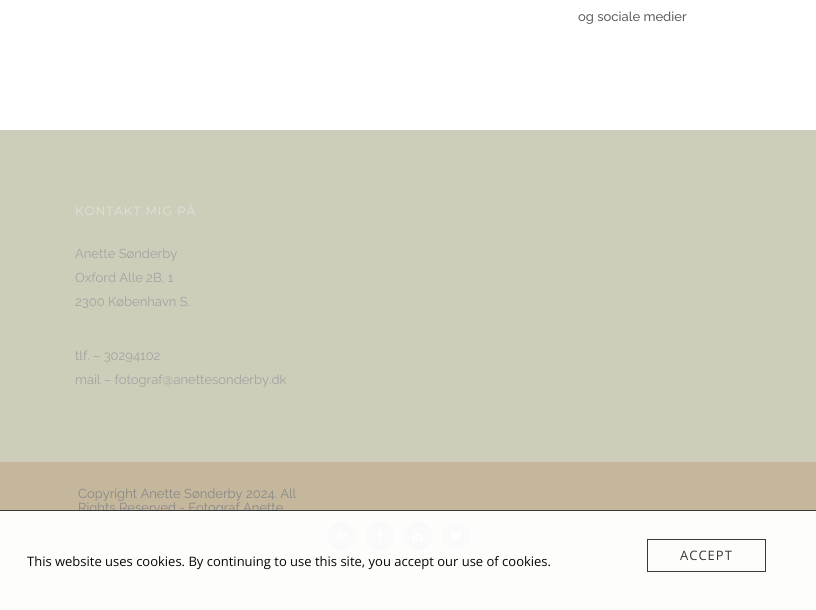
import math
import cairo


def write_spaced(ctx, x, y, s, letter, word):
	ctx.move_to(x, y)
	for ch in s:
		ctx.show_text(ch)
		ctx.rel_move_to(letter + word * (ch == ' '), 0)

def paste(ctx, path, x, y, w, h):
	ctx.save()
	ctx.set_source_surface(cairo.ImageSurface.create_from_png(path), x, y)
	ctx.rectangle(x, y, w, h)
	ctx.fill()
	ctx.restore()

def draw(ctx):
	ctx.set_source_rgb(1, 1, 1)
	ctx.paint()
	ctx.select_font_face('Raleway Medium')
	ctx.set_font_size(13)
	ctx.set_source_rgb(0.373, 0.384, 0.388)
	ctx.move_to(578, 21)
	ctx.show_text('og sociale medier')
	ctx.set_source_rgb(0.808, 0.804, 0.725)
	ctx.rectangle(0, 130, 816, 332)
	ctx.fill()
	ctx.select_font_face('Montserrat')
	ctx.set_font_size(12)
	ctx.set_source_rgb(0.875, 0.875, 0.875)
	write_spaced(ctx, 75, 215, 'KONTAKT MIG PÅ', 1, 0)
	ctx.select_font_face('Raleway')
	ctx.set_font_size(13)
	ctx.set_source_rgb(0.635, 0.635, 0.635)
	for x, y, s in [
		(75, 258, 'Anette Sønderby'),
		(75, 282, 'Oxford Alle 2B, 1'),
		(75, 306, '2300 København S.'),
		(75, 360, 'tlf. – 30294102'),
		(75, 384, 'mail – fotograf@anettesonderby.dk'),
	]:
		ctx.move_to(x, y)
		ctx.show_text(s)
	ctx.set_source_rgb(0.769, 0.718, 0.608)
	ctx.rectangle(0, 462, 816, 148)
	ctx.fill()
	ctx.set_source_rgb(0.533, 0.533, 0.533)
	ctx.move_to(78, 498)
	ctx.show_text('Copyright Anette Sønderby 2024. All')
	ctx.move_to(78, 512)
	ctx.show_text('Rights Reserved - Fotograf Anette')
	ctx.set_source_rgb(0.275, 0.275, 0.275)
	ctx.new_path()
	ctx.arc(342, 536, 14, 0, 2 * math.pi)
	ctx.fill()
	paste(ctx, 'media/1.png', 336, 530, 12, 11)
	ctx.arc(380, 536, 14, 0, 2 * math.pi)
	ctx.fill()
	paste(ctx, 'media/2.png', 377, 529, 7, 13)
	ctx.arc(418, 536, 14, 0, 2 * math.pi)
	ctx.fill()
	paste(ctx, 'media/3.png', 412, 530, 11, 12)
	ctx.arc(456, 536, 14, 0, 2 * math.pi)
	ctx.fill()
	paste(ctx, 'media/4.png', 450, 530, 12, 11)
	ctx.set_source_rgba(1, 1, 1, 0.97)
	ctx.rectangle(0, 511, 816, 99)
	ctx.fill()
	ctx.set_source_rgb(0.224, 0.224, 0.224)
	ctx.rectangle(0, 510, 816, 1)
	ctx.fill()
	ctx.select_font_face('Open Sans')
	ctx.set_source_rgb(0.031, 0.031, 0.031)
	ctx.move_to(27, 566)
	ctx.show_text('This website uses cookies. By continuing to use this site, you accept our use of cookies.')
	ctx.rectangle(647.5, 539.5, 118, 32)
	ctx.set_source_rgb(0.224, 0.224, 0.224)
	ctx.set_line_width(1)
	ctx.stroke()
	ctx.set_source_rgb(0.216, 0.216, 0.212)
	write_spaced(ctx, 680, 560, 'ACCEPT', 1, 0)


surface = cairo.ImageSurface(cairo.FORMAT_RGB24, 816, 610)
ctx = cairo.Context(surface)
options = cairo.FontOptions()
options.set_hint_metrics(cairo.HINT_METRICS_OFF)
options.set_hint_style(cairo.HINT_STYLE_NONE)
ctx.set_font_options(options)
ctx.set_miter_limit(4)
draw(ctx)
surface.write_to_png('image.png')
